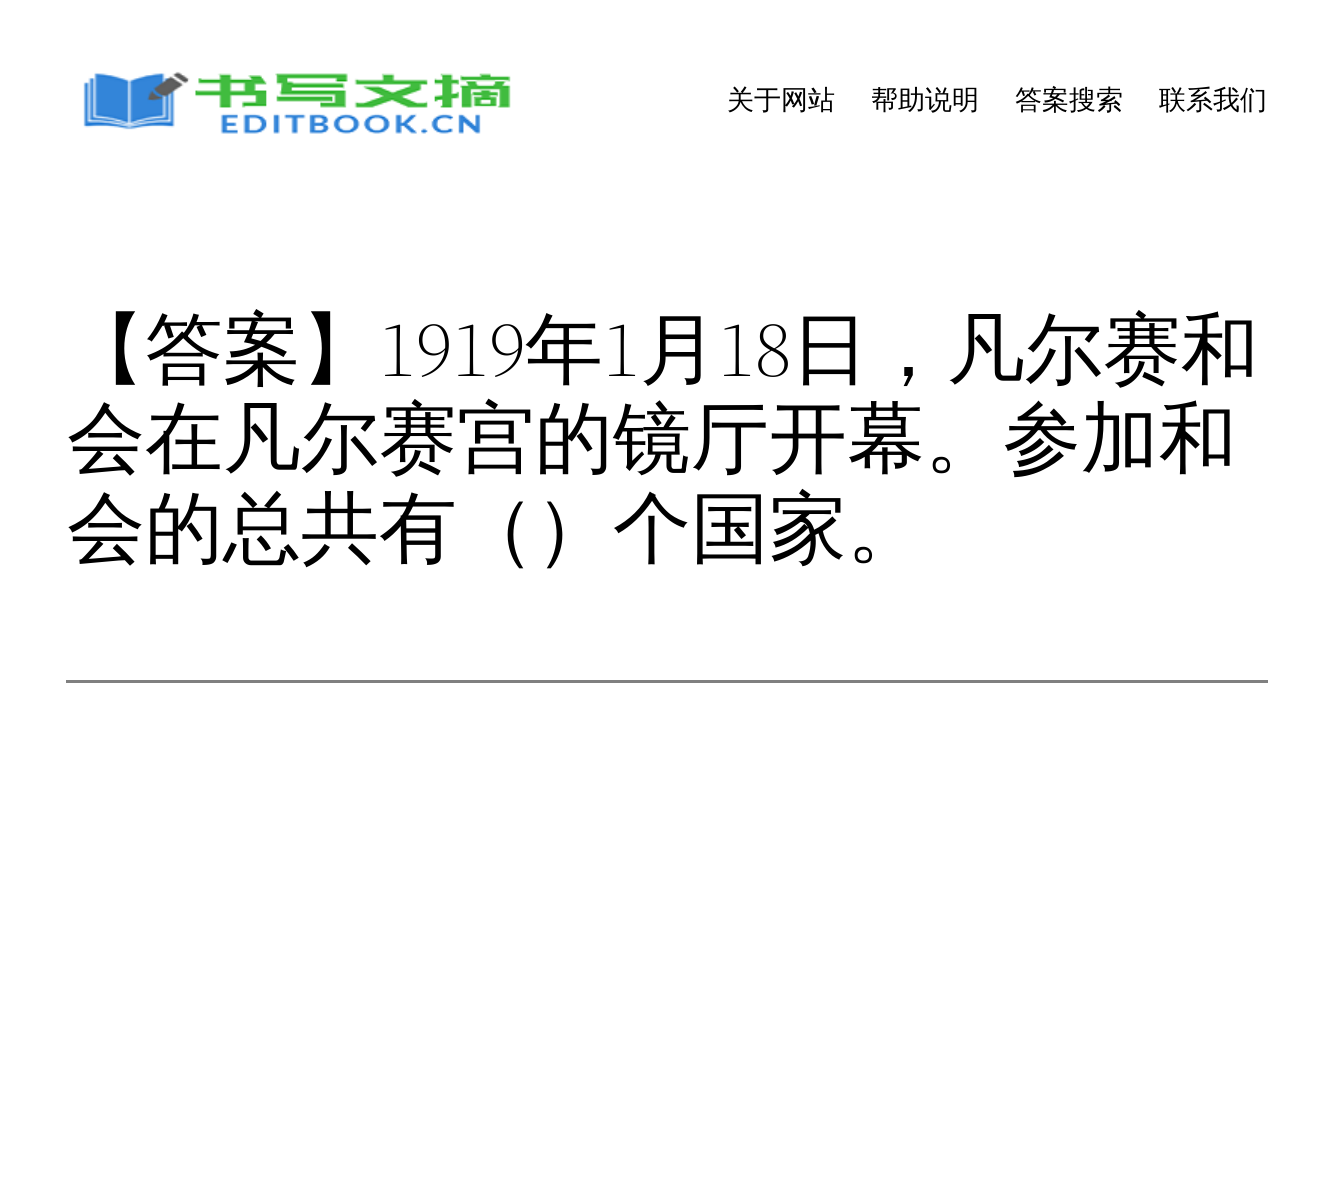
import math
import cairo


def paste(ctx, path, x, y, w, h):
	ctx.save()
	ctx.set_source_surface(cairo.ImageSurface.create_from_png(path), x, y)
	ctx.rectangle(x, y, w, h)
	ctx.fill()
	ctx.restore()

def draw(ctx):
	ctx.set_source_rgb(1, 1, 1)
	ctx.paint()
	paste(ctx, 'media/1.png', 83, 71, 428, 63)
	ctx.select_font_face('WenQuanYi Zen Hei Medium')
	ctx.set_font_size(27)
	ctx.set_source_rgb(0, 0, 0)
	for x, y, s in [
		(727, 109, '关于网站'),
		(871, 109, '帮助说明'),
		(1015, 109, '答案搜索'),
		(1159, 109, '联系我们'),
	]:
		ctx.move_to(x, y)
		ctx.show_text(s)
	ctx.set_font_size(78)
	ctx.move_to(67, 376)
	ctx.show_text('【答案】')
	ctx.select_font_face('Source Serif 4 Light')
	ctx.move_to(379, 376)
	ctx.show_text('1919')
	ctx.select_font_face('WenQuanYi Zen Hei Medium')
	ctx.move_to(525, 376)
	ctx.show_text('年')
	ctx.select_font_face('Source Serif 4 Light')
	ctx.move_to(603, 376)
	ctx.show_text('1')
	ctx.select_font_face('WenQuanYi Zen Hei Medium')
	ctx.move_to(640, 376)
	ctx.show_text('月')
	ctx.select_font_face('Source Serif 4 Light')
	ctx.move_to(718, 376)
	ctx.show_text('18')
	ctx.select_font_face('WenQuanYi Zen Hei Medium')
	for x, y, s in [
		(791, 376, '日，凡尔赛和'),
		(67, 465, '会在凡尔赛宫的镜厅开幕。参加和'),
		(67, 555, '会的总共有（）个国家。'),
	]:
		ctx.move_to(x, y)
		ctx.show_text(s)
	ctx.set_source_rgb(0.502, 0.502, 0.502)
	ctx.rectangle(66, 680, 1202, 3)
	ctx.fill()


surface = cairo.ImageSurface(cairo.FORMAT_RGB24, 1333, 1179)
ctx = cairo.Context(surface)
options = cairo.FontOptions()
options.set_hint_metrics(cairo.HINT_METRICS_OFF)
options.set_hint_style(cairo.HINT_STYLE_NONE)
ctx.set_font_options(options)
ctx.set_miter_limit(4)
draw(ctx)
surface.write_to_png('image.png')
